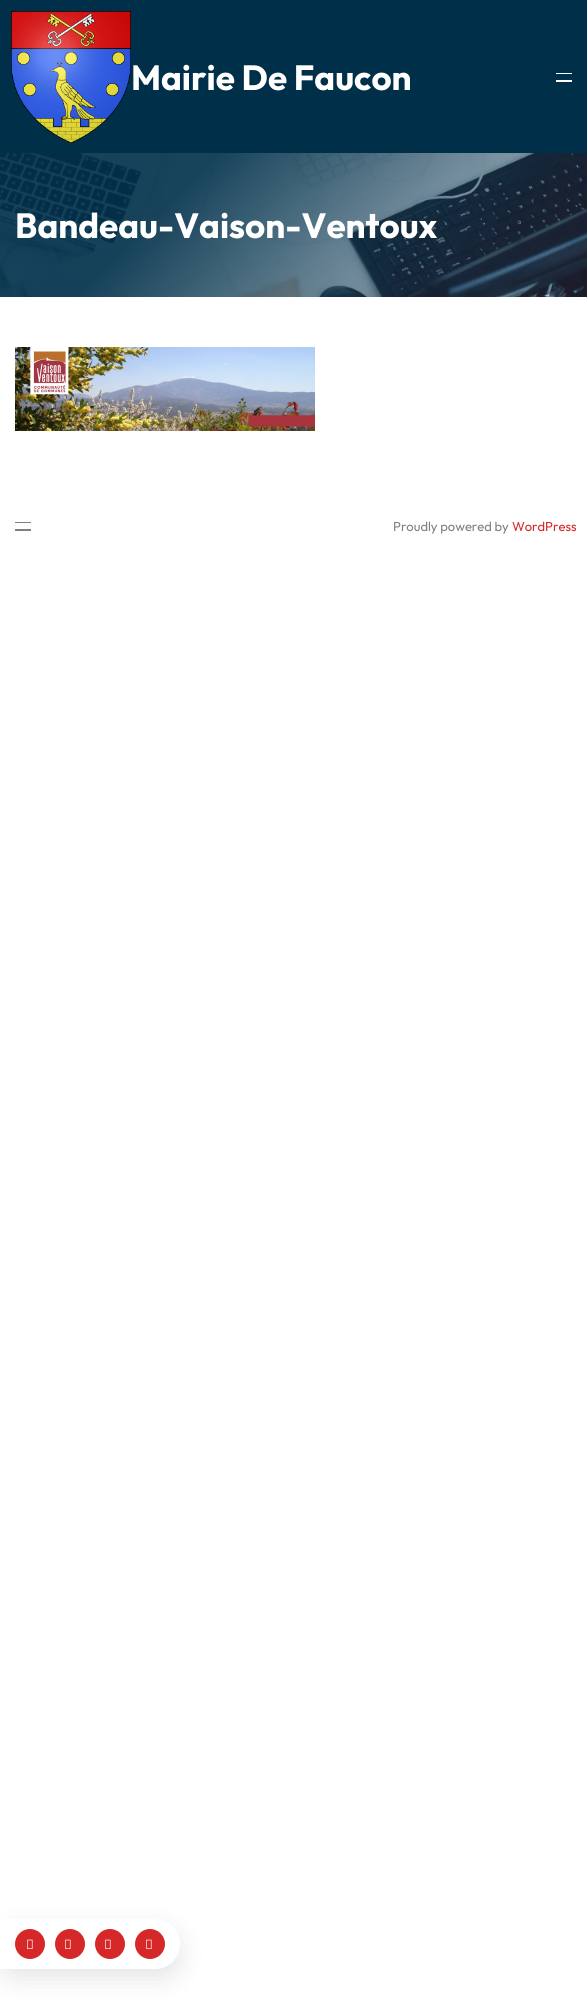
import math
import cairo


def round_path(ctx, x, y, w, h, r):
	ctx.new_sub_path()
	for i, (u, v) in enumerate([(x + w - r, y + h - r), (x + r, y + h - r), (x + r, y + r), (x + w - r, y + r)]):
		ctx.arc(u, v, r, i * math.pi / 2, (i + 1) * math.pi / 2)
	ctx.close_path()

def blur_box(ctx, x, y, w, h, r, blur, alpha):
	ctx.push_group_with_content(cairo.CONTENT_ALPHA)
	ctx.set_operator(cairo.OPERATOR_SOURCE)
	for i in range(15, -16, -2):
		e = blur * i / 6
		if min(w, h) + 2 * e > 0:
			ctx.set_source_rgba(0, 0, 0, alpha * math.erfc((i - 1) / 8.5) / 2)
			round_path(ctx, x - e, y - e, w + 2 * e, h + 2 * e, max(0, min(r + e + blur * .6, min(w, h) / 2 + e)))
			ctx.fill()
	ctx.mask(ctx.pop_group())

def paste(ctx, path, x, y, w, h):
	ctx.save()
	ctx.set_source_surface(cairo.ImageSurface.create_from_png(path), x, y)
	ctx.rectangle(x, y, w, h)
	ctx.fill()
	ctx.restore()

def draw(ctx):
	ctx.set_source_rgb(1, 1, 1)
	ctx.paint()
	ctx.set_source_rgb(0, 0.188, 0.286)
	ctx.rectangle(0, 0, 587, 153)
	ctx.fill()
	paste(ctx, 'media/1.png', 11, 11, 120, 132)
	ctx.select_font_face('Outfit', cairo.FONT_SLANT_NORMAL, cairo.FONT_WEIGHT_BOLD)
	ctx.set_font_size(35)
	ctx.set_source_rgb(1, 1, 1)
	ctx.move_to(131, 90)
	ctx.show_text('Mairie De Faucon')
	ctx.rectangle(556, 73, 16, 1)
	ctx.fill()
	ctx.rectangle(556, 80, 16, 2)
	ctx.fill()
	paste(ctx, 'media/2.png', 0, 153, 587, 144)
	ctx.move_to(15, 238)
	ctx.show_text('Bandeau-Vaison-Ventoux')
	paste(ctx, 'media/3.png', 15, 347, 300, 84)
	ctx.set_source_rgb(0, 0, 0)
	blur_box(ctx, 0, 1929, 180, 50, 25, 12.5, 0.1)
	ctx.set_source_rgb(1, 1, 1)
	ctx.new_path()
	ctx.move_to(0, 1919)
	ctx.line_to(155, 1919)
	ctx.curve_to(169, 1919, 180, 1930, 180, 1944)
	ctx.curve_to(180, 1958, 169, 1969, 155, 1969)
	ctx.line_to(0, 1969)
	ctx.close_path()
	ctx.fill()
	ctx.set_source_rgb(0.839, 0.157, 0.157)
	ctx.arc(30, 1944, 15, 0, 2 * math.pi)
	ctx.fill()
	paste(ctx, 'media/4.png', 27, 1939, 6, 10)
	ctx.arc(70, 1944, 15, 0, 2 * math.pi)
	ctx.fill()
	paste(ctx, 'media/4.png', 65, 1939, 6, 10)
	ctx.arc(110, 1944, 15, 0, 2 * math.pi)
	ctx.fill()
	paste(ctx, 'media/4.png', 105, 1939, 6, 10)
	ctx.arc(150, 1944, 15, 0, 2 * math.pi)
	ctx.fill()
	paste(ctx, 'media/4.png', 146, 1939, 6, 10)
	ctx.set_source_rgb(0.498, 0.498, 0.498)
	ctx.rectangle(15, 522, 16, 1)
	ctx.fill()
	ctx.rectangle(15, 529, 16, 2)
	ctx.fill()
	ctx.select_font_face('Outfit')
	ctx.set_font_size(13)
	ctx.move_to(393, 531)
	ctx.show_text('Proudly powered by')
	ctx.set_source_rgb(0.839, 0.157, 0.157)
	ctx.move_to(512, 531)
	ctx.show_text('WordPress')


surface = cairo.ImageSurface(cairo.FORMAT_RGB24, 587, 1999)
ctx = cairo.Context(surface)
options = cairo.FontOptions()
options.set_hint_metrics(cairo.HINT_METRICS_OFF)
options.set_hint_style(cairo.HINT_STYLE_NONE)
ctx.set_font_options(options)
ctx.set_miter_limit(4)
draw(ctx)
surface.write_to_png('image.png')
